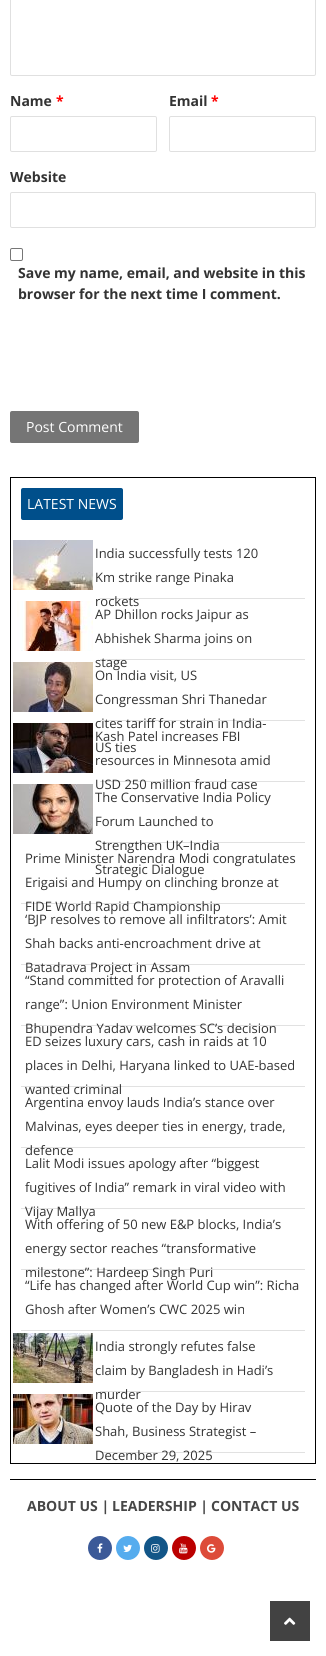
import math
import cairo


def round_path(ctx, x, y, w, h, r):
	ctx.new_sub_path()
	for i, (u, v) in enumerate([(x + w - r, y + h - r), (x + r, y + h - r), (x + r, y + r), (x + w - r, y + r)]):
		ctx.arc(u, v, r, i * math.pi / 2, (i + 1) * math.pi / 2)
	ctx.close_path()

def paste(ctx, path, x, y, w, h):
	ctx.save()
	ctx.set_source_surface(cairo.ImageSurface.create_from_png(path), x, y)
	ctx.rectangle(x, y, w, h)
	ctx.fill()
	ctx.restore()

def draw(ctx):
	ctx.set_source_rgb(1, 1, 1)
	ctx.paint()
	round_path(ctx, 10.5, -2.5, 305, 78, 1.5)
	ctx.set_source_rgb(0.878, 0.878, 0.878)
	ctx.set_line_width(1)
	ctx.stroke()
	ctx.select_font_face('Open Sans', cairo.FONT_SLANT_NORMAL, cairo.FONT_WEIGHT_BOLD)
	ctx.set_font_size(14)
	ctx.set_source_rgb(0.2, 0.2, 0.2)
	ctx.move_to(10, 106)
	ctx.show_text('Name')
	ctx.set_source_rgb(1, 0, 0)
	ctx.move_to(56, 106)
	ctx.show_text('*')
	round_path(ctx, 10.5, 116.5, 146, 35, 1.5)
	ctx.set_source_rgb(0.878, 0.878, 0.878)
	ctx.stroke()
	ctx.set_source_rgb(0.2, 0.2, 0.2)
	ctx.move_to(169, 106)
	ctx.show_text('Email')
	ctx.set_source_rgb(1, 0, 0)
	ctx.move_to(211, 106)
	ctx.show_text('*')
	round_path(ctx, 169.5, 116.5, 146, 35, 1.5)
	ctx.set_source_rgb(0.878, 0.878, 0.878)
	ctx.stroke()
	ctx.set_source_rgb(0.2, 0.2, 0.2)
	ctx.move_to(10, 182)
	ctx.show_text('Website')
	round_path(ctx, 10.5, 192.5, 305, 35, 1.5)
	ctx.set_source_rgb(0.878, 0.878, 0.878)
	ctx.stroke()
	round_path(ctx, 10.5, 248.5, 12, 12, 1.5)
	ctx.set_source_rgb(0.463, 0.463, 0.463)
	ctx.stroke()
	ctx.set_source_rgb(0.2, 0.2, 0.2)
	ctx.move_to(18, 278)
	ctx.show_text('Save my name, email, and website in this')
	ctx.move_to(18, 299)
	ctx.show_text('browser for the next time I comment.')
	ctx.set_source_rgb(0.459, 0.459, 0.459)
	round_path(ctx, 10, 411, 129, 32, 2)
	ctx.fill()
	ctx.select_font_face('Open Sans')
	ctx.set_source_rgb(1, 1, 1)
	ctx.move_to(26, 432)
	ctx.show_text('Post Comment')
	ctx.rectangle(10.5, 477.5, 305, 986)
	ctx.set_source_rgb(0, 0, 0)
	ctx.stroke()
	ctx.set_source_rgb(0, 0.31, 0.545)
	round_path(ctx, 21, 488, 102, 32, 2)
	ctx.fill()
	ctx.set_source_rgb(1, 1, 1)
	ctx.move_to(27, 509)
	ctx.show_text('LATEST NEWS')
	paste(ctx, 'media/1.png', 13, 540, 80, 50)
	ctx.set_font_size(13)
	ctx.set_source_rgb(0.2, 0.2, 0.2)
	for x, y, s in [
		(95, 558, 'India successfully tests 120'),
		(95, 582, 'Km strike range Pinaka'),
		(95, 606, 'rockets'),
	]:
		ctx.move_to(x, y)
		ctx.show_text(s)
	ctx.set_source_rgba(0, 0, 0, 0.12)
	ctx.rectangle(100, 598, 205, 1)
	ctx.fill()
	paste(ctx, 'media/2.png', 17, 601, 76, 50)
	ctx.set_source_rgb(0.2, 0.2, 0.2)
	for x, y, s in [
		(95, 619, 'AP Dhillon rocks Jaipur as'),
		(95, 643, 'Abhishek Sharma joins on'),
		(95, 667, 'stage'),
	]:
		ctx.move_to(x, y)
		ctx.show_text(s)
	ctx.set_source_rgba(0, 0, 0, 0.12)
	ctx.rectangle(100, 659, 205, 1)
	ctx.fill()
	paste(ctx, 'media/3.png', 13, 662, 80, 50)
	ctx.set_source_rgb(0.2, 0.2, 0.2)
	for x, y, s in [
		(95, 680, 'On India visit, US'),
		(95, 704, 'Congressman Shri Thanedar'),
		(95, 728, 'cites tariff for strain in India-'),
		(95, 752, 'US ties'),
	]:
		ctx.move_to(x, y)
		ctx.show_text(s)
	ctx.set_source_rgba(0, 0, 0, 0.12)
	ctx.rectangle(100, 720, 205, 1)
	ctx.fill()
	paste(ctx, 'media/4.png', 13, 723, 80, 50)
	ctx.set_source_rgb(0.2, 0.2, 0.2)
	for x, y, s in [
		(95, 741, 'Kash Patel increases FBI'),
		(95, 765, 'resources in Minnesota amid'),
		(95, 789, 'USD 250 million fraud case'),
	]:
		ctx.move_to(x, y)
		ctx.show_text(s)
	ctx.set_source_rgba(0, 0, 0, 0.12)
	ctx.rectangle(100, 781, 205, 1)
	ctx.fill()
	paste(ctx, 'media/5.png', 13, 784, 80, 50)
	ctx.set_source_rgb(0.2, 0.2, 0.2)
	for x, y, s in [
		(95, 802, 'The Conservative India Policy'),
		(95, 826, 'Forum Launched to'),
		(95, 850, 'Strengthen UK–India'),
		(95, 874, 'Strategic Dialogue'),
	]:
		ctx.move_to(x, y)
		ctx.show_text(s)
	ctx.set_source_rgba(0, 0, 0, 0.12)
	ctx.rectangle(100, 842, 205, 1)
	ctx.fill()
	ctx.set_source_rgb(0.2, 0.2, 0.2)
	for x, y, s in [
		(25, 863, 'Prime Minister Narendra Modi congratulates'),
		(25, 887, 'Erigaisi and Humpy on clinching bronze at'),
		(25, 911, 'FIDE World Rapid Championship'),
	]:
		ctx.move_to(x, y)
		ctx.show_text(s)
	ctx.set_source_rgba(0, 0, 0, 0.12)
	ctx.rectangle(21, 903, 284, 1)
	ctx.fill()
	ctx.set_source_rgb(0.2, 0.2, 0.2)
	for x, y, s in [
		(25, 924, '‘BJP resolves to remove all infiltrators’: Amit'),
		(25, 948, 'Shah backs anti-encroachment drive at'),
		(25, 972, 'Batadrava Project in Assam'),
	]:
		ctx.move_to(x, y)
		ctx.show_text(s)
	ctx.set_source_rgba(0, 0, 0, 0.12)
	ctx.rectangle(21, 964, 284, 1)
	ctx.fill()
	ctx.set_source_rgb(0.2, 0.2, 0.2)
	for x, y, s in [
		(25, 985, '“Stand committed for protection of Aravalli'),
		(25, 1009, 'range”: Union Environment Minister'),
		(25, 1033, 'Bhupendra Yadav welcomes SC’s decision'),
	]:
		ctx.move_to(x, y)
		ctx.show_text(s)
	ctx.set_source_rgba(0, 0, 0, 0.12)
	ctx.rectangle(21, 1025, 284, 1)
	ctx.fill()
	ctx.set_source_rgb(0.2, 0.2, 0.2)
	for x, y, s in [
		(25, 1046, 'ED seizes luxury cars, cash in raids at 10'),
		(25, 1070, 'places in Delhi, Haryana linked to UAE-based'),
		(25, 1094, 'wanted criminal'),
	]:
		ctx.move_to(x, y)
		ctx.show_text(s)
	ctx.set_source_rgba(0, 0, 0, 0.12)
	ctx.rectangle(21, 1086, 284, 1)
	ctx.fill()
	ctx.set_source_rgb(0.2, 0.2, 0.2)
	for x, y, s in [
		(25, 1107, 'Argentina envoy lauds India’s stance over'),
		(25, 1131, 'Malvinas, eyes deeper ties in energy, trade,'),
		(25, 1155, 'defence'),
	]:
		ctx.move_to(x, y)
		ctx.show_text(s)
	ctx.set_source_rgba(0, 0, 0, 0.12)
	ctx.rectangle(21, 1147, 284, 1)
	ctx.fill()
	ctx.set_source_rgb(0.2, 0.2, 0.2)
	for x, y, s in [
		(25, 1168, 'Lalit Modi issues apology after “biggest'),
		(25, 1192, 'fugitives of India” remark in viral video with'),
		(25, 1216, 'Vijay Mallya'),
	]:
		ctx.move_to(x, y)
		ctx.show_text(s)
	ctx.set_source_rgba(0, 0, 0, 0.12)
	ctx.rectangle(21, 1208, 284, 1)
	ctx.fill()
	ctx.set_source_rgb(0.2, 0.2, 0.2)
	for x, y, s in [
		(25, 1229, 'With offering of 50 new E&P blocks, India’s'),
		(25, 1253, 'energy sector reaches “transformative'),
		(25, 1277, 'milestone”: Hardeep Singh Puri'),
	]:
		ctx.move_to(x, y)
		ctx.show_text(s)
	ctx.set_source_rgba(0, 0, 0, 0.12)
	ctx.rectangle(21, 1269, 284, 1)
	ctx.fill()
	ctx.set_source_rgb(0.2, 0.2, 0.2)
	ctx.move_to(25, 1290)
	ctx.show_text('“Life has changed after World Cup win”: Richa')
	ctx.move_to(25, 1314)
	ctx.show_text('Ghosh after Women’s CWC 2025 win')
	ctx.set_source_rgb(0.878, 0.878, 0.878)
	ctx.rectangle(21, 1330, 284, 1)
	ctx.fill()
	paste(ctx, 'media/6.png', 13, 1333, 80, 50)
	ctx.set_source_rgb(0.2, 0.2, 0.2)
	for x, y, s in [
		(95, 1351, 'India strongly refutes false'),
		(95, 1375, 'claim by Bangladesh in Hadi’s'),
		(95, 1399, 'murder'),
	]:
		ctx.move_to(x, y)
		ctx.show_text(s)
	ctx.set_source_rgba(0, 0, 0, 0.12)
	ctx.rectangle(100, 1391, 205, 1)
	ctx.fill()
	paste(ctx, 'media/7.png', 13, 1394, 80, 50)
	ctx.set_source_rgb(0.2, 0.2, 0.2)
	for x, y, s in [
		(95, 1412, 'Quote of the Day by Hirav'),
		(95, 1436, 'Shah, Business Strategist –'),
		(95, 1460, 'December 29, 2025'),
	]:
		ctx.move_to(x, y)
		ctx.show_text(s)
	ctx.set_source_rgba(0, 0, 0, 0.12)
	ctx.rectangle(100, 1452, 205, 1)
	ctx.fill()
	ctx.set_source_rgb(0, 0, 0)
	ctx.rectangle(10, 1479, 306, 1)
	ctx.fill()
	ctx.select_font_face('Open Sans', cairo.FONT_SLANT_NORMAL, cairo.FONT_WEIGHT_BOLD)
	ctx.set_font_size(14)
	ctx.set_source_rgb(0.278, 0.278, 0.278)
	for x, y, s in [
		(27, 1511, 'ABOUT US |'),
		(112, 1511, 'LEADERSHIP |'),
		(211, 1511, 'CONTACT US'),
	]:
		ctx.move_to(x, y)
		ctx.show_text(s)
	ctx.set_source_rgb(0.231, 0.349, 0.596)
	ctx.new_path()
	ctx.arc(100, 1548, 12, 0, 2 * math.pi)
	ctx.fill()
	paste(ctx, 'media/8.png', 97, 1543, 6, 10)
	ctx.set_source_rgb(0.333, 0.675, 0.933)
	ctx.arc(128, 1548, 12, 0, 2 * math.pi)
	ctx.fill()
	paste(ctx, 'media/9.png', 123, 1544, 9, 8)
	ctx.set_source_rgb(0.071, 0.337, 0.533)
	ctx.arc(156, 1548, 12, 0, 2 * math.pi)
	ctx.fill()
	paste(ctx, 'media/10.png', 151, 1544, 9, 9)
	ctx.set_source_rgb(0.733, 0, 0)
	ctx.arc(184, 1548, 12, 0, 2 * math.pi)
	ctx.fill()
	paste(ctx, 'media/11.png', 179, 1543, 9, 11)
	ctx.set_source_rgb(0.867, 0.294, 0.224)
	ctx.arc(212, 1548, 12, 0, 2 * math.pi)
	ctx.fill()
	paste(ctx, 'media/12.png', 207, 1544, 9, 9)
	ctx.set_source_rgb(0.259, 0.259, 0.259)
	ctx.rectangle(270, 1601, 40, 40)
	ctx.fill()
	paste(ctx, 'media/13.png', 284, 1617, 12, 8)


surface = cairo.ImageSurface(cairo.FORMAT_RGB24, 326, 1656)
ctx = cairo.Context(surface)
options = cairo.FontOptions()
options.set_hint_metrics(cairo.HINT_METRICS_OFF)
options.set_hint_style(cairo.HINT_STYLE_NONE)
ctx.set_font_options(options)
ctx.set_miter_limit(4)
draw(ctx)
surface.write_to_png('image.png')
